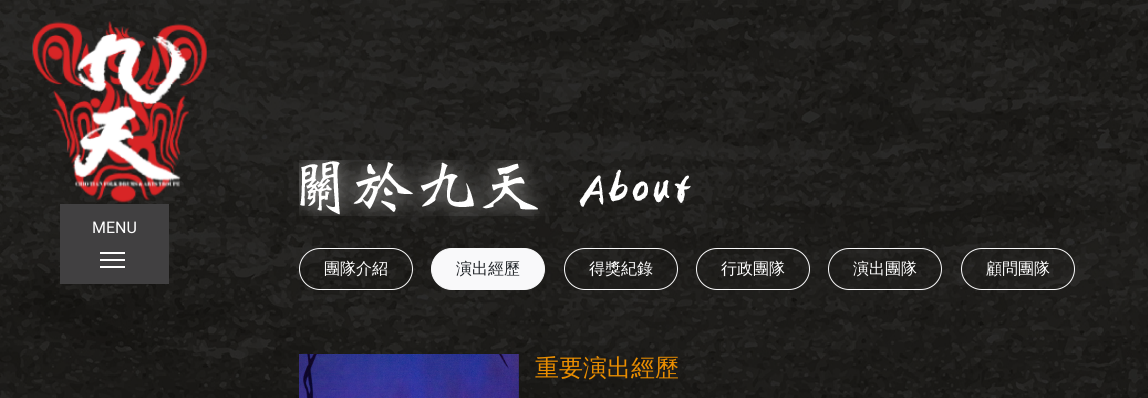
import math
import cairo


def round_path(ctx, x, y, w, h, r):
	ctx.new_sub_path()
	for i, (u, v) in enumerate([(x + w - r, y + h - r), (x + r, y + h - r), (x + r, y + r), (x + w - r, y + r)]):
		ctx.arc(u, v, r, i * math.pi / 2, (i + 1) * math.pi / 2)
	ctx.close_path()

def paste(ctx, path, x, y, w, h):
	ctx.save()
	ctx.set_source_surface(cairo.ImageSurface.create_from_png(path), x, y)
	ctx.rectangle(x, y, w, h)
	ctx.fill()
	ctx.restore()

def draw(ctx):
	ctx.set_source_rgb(1, 1, 1)
	ctx.paint()
	paste(ctx, 'media/1.png', 0, 0, 1148, 398)
	ctx.set_source_rgb(0.255, 0.251, 0.255)
	ctx.rectangle(60, 204, 109, 80)
	ctx.fill()
	ctx.select_font_face('Roboto')
	ctx.set_font_size(16)
	ctx.set_source_rgb(1, 1, 1)
	ctx.move_to(92, 233)
	ctx.show_text('MENU')
	ctx.rectangle(100, 259, 25, 2)
	ctx.rectangle(100, 252, 25, 2)
	ctx.rectangle(100, 266, 25, 2)
	ctx.fill()
	paste(ctx, 'media/2.png', 32, 21, 175, 182)
	paste(ctx, 'media/3.png', 299, 160, 392, 56)
	round_path(ctx, 299.5, 248.5, 113, 41, 20.5)
	ctx.set_source_rgb(0.973, 0.976, 0.98)
	ctx.set_line_width(1)
	ctx.stroke()
	ctx.select_font_face('WenQuanYi Zen Hei Medium')
	ctx.set_source_rgb(1, 1, 1)
	ctx.move_to(324, 274)
	ctx.show_text('團隊介紹')
	ctx.set_source_rgb(0.973, 0.976, 0.98)
	round_path(ctx, 431.5, 248.5, 113, 41, 20.5)
	ctx.fill_preserve()
	ctx.stroke()
	ctx.set_source_rgb(0.129, 0.145, 0.161)
	ctx.move_to(456, 274)
	ctx.show_text('演出經歷')
	round_path(ctx, 564.5, 248.5, 113, 41, 20.5)
	ctx.set_source_rgb(0.973, 0.976, 0.98)
	ctx.stroke()
	ctx.set_source_rgb(1, 1, 1)
	ctx.move_to(589, 274)
	ctx.show_text('得獎紀錄')
	round_path(ctx, 696.5, 248.5, 113, 41, 20.5)
	ctx.set_source_rgb(0.973, 0.976, 0.98)
	ctx.stroke()
	ctx.set_source_rgb(1, 1, 1)
	ctx.move_to(721, 274)
	ctx.show_text('行政團隊')
	round_path(ctx, 828.5, 248.5, 113, 41, 20.5)
	ctx.set_source_rgb(0.973, 0.976, 0.98)
	ctx.stroke()
	ctx.set_source_rgb(1, 1, 1)
	ctx.move_to(853, 274)
	ctx.show_text('演出團隊')
	round_path(ctx, 961.5, 248.5, 113, 41, 20.5)
	ctx.set_source_rgb(0.973, 0.976, 0.98)
	ctx.stroke()
	ctx.set_source_rgb(1, 1, 1)
	ctx.move_to(986, 274)
	ctx.show_text('顧問團隊')
	paste(ctx, 'media/4.png', 299, 354, 220, 44)
	ctx.set_font_size(24)
	ctx.set_source_rgb(0.914, 0.553, 0)
	ctx.move_to(535, 376)
	ctx.show_text('重要演出經歷')


surface = cairo.ImageSurface(cairo.FORMAT_RGB24, 1148, 398)
ctx = cairo.Context(surface)
options = cairo.FontOptions()
options.set_hint_metrics(cairo.HINT_METRICS_OFF)
options.set_hint_style(cairo.HINT_STYLE_NONE)
ctx.set_font_options(options)
ctx.set_miter_limit(4)
draw(ctx)
surface.write_to_png('image.png')
